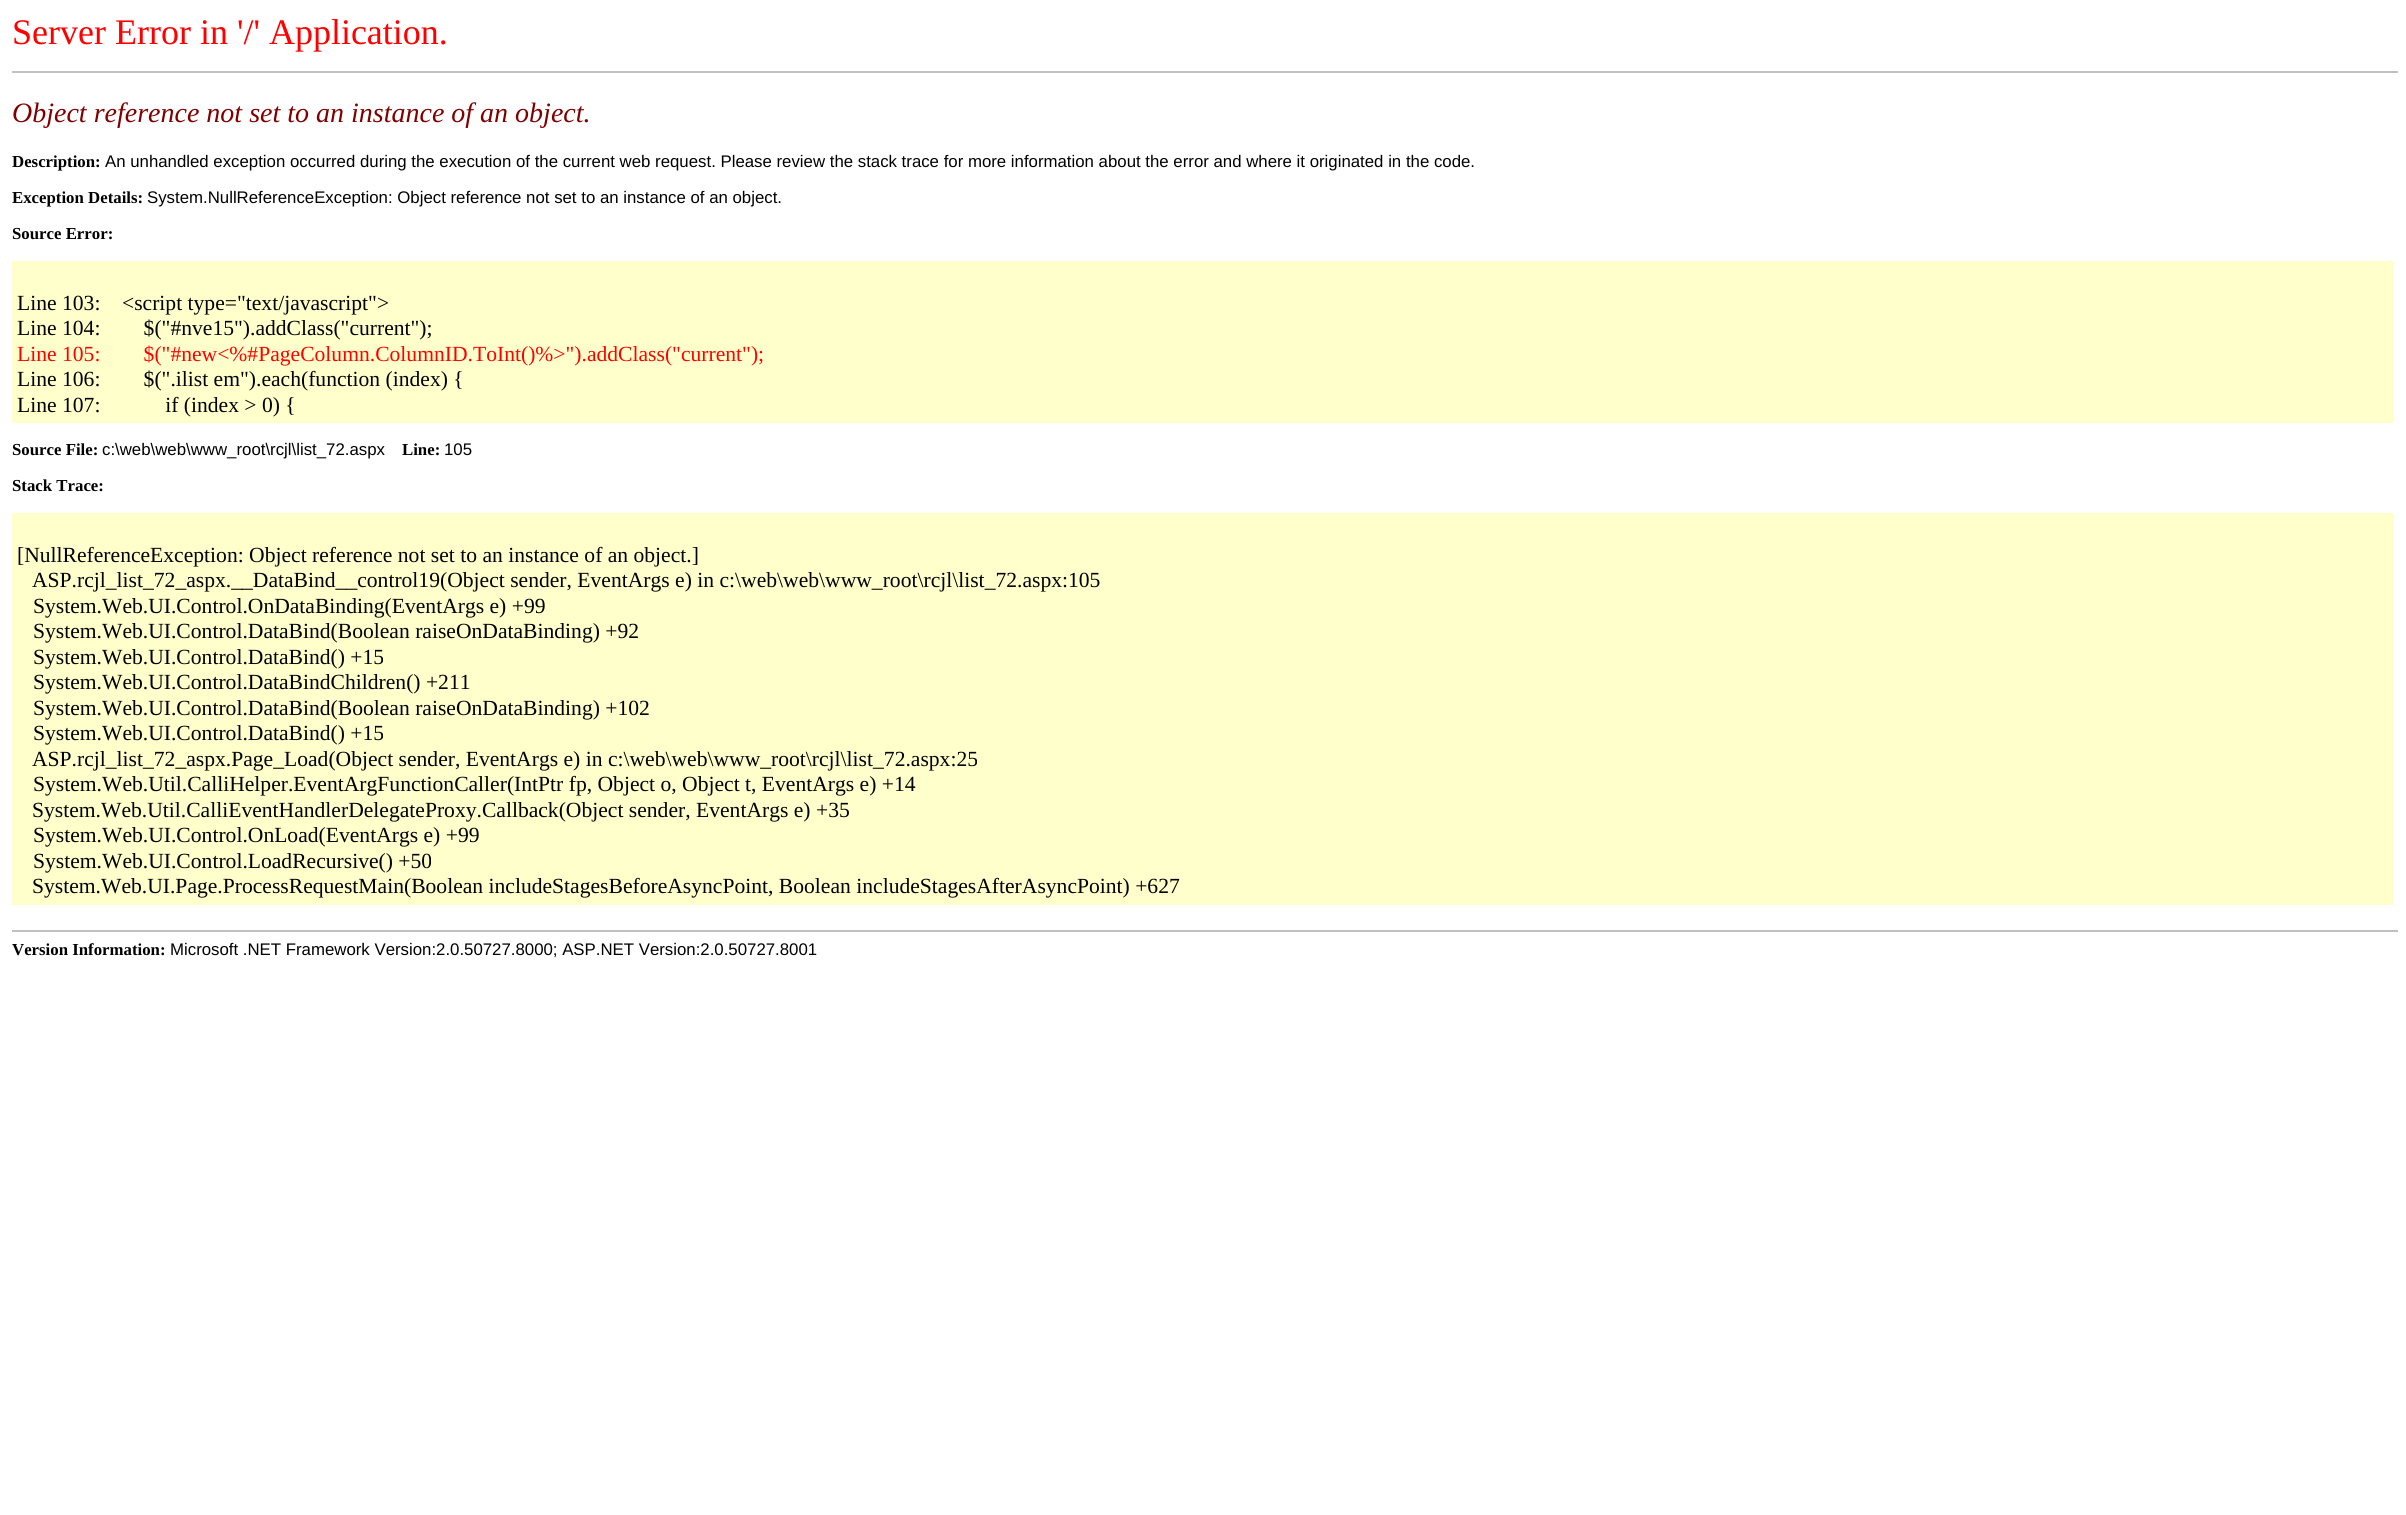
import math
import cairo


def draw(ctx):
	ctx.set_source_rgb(1, 1, 1)
	ctx.paint()
	ctx.select_font_face('Liberation Serif')
	ctx.set_font_size(36)
	ctx.set_source_rgb(1, 0, 0)
	ctx.move_to(12, 44)
	ctx.show_text('Server Error in \'/\' Application.')
	ctx.set_source_rgb(0.753, 0.753, 0.753)
	ctx.rectangle(12, 71, 2386, 2)
	ctx.fill()
	ctx.select_font_face('Liberation Serif', cairo.FONT_SLANT_ITALIC)
	ctx.set_font_size(28)
	ctx.set_source_rgb(0.502, 0, 0)
	ctx.move_to(12, 122)
	ctx.show_text('Object reference not set to an instance of an object.')
	ctx.select_font_face('Liberation Serif', cairo.FONT_SLANT_NORMAL, cairo.FONT_WEIGHT_BOLD)
	ctx.set_font_size(16.8)
	ctx.set_source_rgb(0, 0, 0)
	ctx.move_to(12, 167)
	ctx.show_text('Description:')
	ctx.select_font_face('Liberation Sans')
	ctx.move_to(105, 167)
	ctx.show_text('An unhandled exception occurred during the execution of the current web request. Please review the stack trace for more information about the error and where it originated in the code.')
	ctx.select_font_face('Liberation Serif', cairo.FONT_SLANT_NORMAL, cairo.FONT_WEIGHT_BOLD)
	ctx.move_to(12, 203)
	ctx.show_text('Exception Details:')
	ctx.select_font_face('Liberation Sans')
	ctx.move_to(147, 203)
	ctx.show_text('System.NullReferenceException: Object reference not set to an instance of an object.')
	ctx.select_font_face('Liberation Serif', cairo.FONT_SLANT_NORMAL, cairo.FONT_WEIGHT_BOLD)
	ctx.move_to(12, 239)
	ctx.show_text('Source Error:')
	ctx.set_source_rgb(1, 1, 0.8)
	ctx.rectangle(12, 261, 2382, 162)
	ctx.fill()
	ctx.select_font_face('Liberation Serif')
	ctx.set_font_size(21.6)
	ctx.set_source_rgb(0, 0, 0)
	ctx.move_to(17, 310)
	ctx.show_text('Line 103:    <script type="text/javascript">')
	ctx.move_to(17, 335)
	ctx.show_text('Line 104:        $("#nve15").addClass("current");')
	ctx.set_source_rgb(1, 0, 0)
	ctx.move_to(17, 361)
	ctx.show_text('Line 105:        $("#new<%#PageColumn.ColumnID.ToInt()%>").addClass("current");')
	ctx.set_source_rgb(0, 0, 0)
	ctx.move_to(17, 386)
	ctx.show_text('Line 106:        $(".ilist em").each(function (index) {')
	ctx.move_to(17, 412)
	ctx.show_text('Line 107:            if (index > 0) {')
	ctx.select_font_face('Liberation Serif', cairo.FONT_SLANT_NORMAL, cairo.FONT_WEIGHT_BOLD)
	ctx.set_font_size(16.8)
	ctx.move_to(12, 455)
	ctx.show_text('Source File:')
	ctx.select_font_face('Liberation Sans')
	ctx.move_to(102, 455)
	ctx.show_text('c:\\web\\web\\www_root\\rcjl\\list_72.aspx')
	ctx.select_font_face('Liberation Serif', cairo.FONT_SLANT_NORMAL, cairo.FONT_WEIGHT_BOLD)
	ctx.move_to(402, 455)
	ctx.show_text('Line:')
	ctx.select_font_face('Liberation Sans')
	ctx.move_to(444, 455)
	ctx.show_text('105')
	ctx.select_font_face('Liberation Serif', cairo.FONT_SLANT_NORMAL, cairo.FONT_WEIGHT_BOLD)
	ctx.move_to(12, 491)
	ctx.show_text('Stack Trace:')
	ctx.set_source_rgb(1, 1, 0.8)
	ctx.rectangle(12, 513, 2382, 392)
	ctx.fill()
	ctx.select_font_face('Liberation Serif')
	ctx.set_font_size(21.6)
	ctx.set_source_rgb(0, 0, 0)
	for x, y, s in [
		(17, 562, '[NullReferenceException: Object reference not set to an instance of an object.]'),
		(32, 587, 'ASP.rcjl_list_72_aspx.__DataBind__control19(Object sender, EventArgs e) in c:\\web\\web\\www_root\\rcjl\\list_72.aspx:105'),
		(33, 613, 'System.Web.UI.Control.OnDataBinding(EventArgs e) +99'),
		(33, 638, 'System.Web.UI.Control.DataBind(Boolean raiseOnDataBinding) +92'),
		(33, 664, 'System.Web.UI.Control.DataBind() +15'),
		(33, 689, 'System.Web.UI.Control.DataBindChildren() +211'),
		(33, 715, 'System.Web.UI.Control.DataBind(Boolean raiseOnDataBinding) +102'),
		(33, 740, 'System.Web.UI.Control.DataBind() +15'),
		(32, 766, 'ASP.rcjl_list_72_aspx.Page_Load(Object sender, EventArgs e) in c:\\web\\web\\www_root\\rcjl\\list_72.aspx:25'),
		(33, 791, 'System.Web.Util.CalliHelper.EventArgFunctionCaller(IntPtr fp, Object o, Object t, EventArgs e) +14'),
		(32, 817, 'System.Web.Util.CalliEventHandlerDelegateProxy.Callback(Object sender, EventArgs e) +35'),
		(33, 842, 'System.Web.UI.Control.OnLoad(EventArgs e) +99'),
		(33, 868, 'System.Web.UI.Control.LoadRecursive() +50'),
		(32, 893, 'System.Web.UI.Page.ProcessRequestMain(Boolean includeStagesBeforeAsyncPoint, Boolean includeStagesAfterAsyncPoint) +627'),
	]:
		ctx.move_to(x, y)
		ctx.show_text(s)
	ctx.set_source_rgb(0.753, 0.753, 0.753)
	ctx.rectangle(12, 930, 2386, 2)
	ctx.fill()
	ctx.select_font_face('Liberation Serif', cairo.FONT_SLANT_NORMAL, cairo.FONT_WEIGHT_BOLD)
	ctx.set_font_size(16.8)
	ctx.set_source_rgb(0, 0, 0)
	ctx.move_to(12, 955)
	ctx.show_text('Version Information:')
	ctx.select_font_face('Liberation Sans')
	ctx.move_to(170, 955)
	ctx.show_text('Microsoft .NET Framework Version:2.0.50727.8000; ASP.NET Version:2.0.50727.8001')


surface = cairo.ImageSurface(cairo.FORMAT_RGB24, 2406, 1515)
ctx = cairo.Context(surface)
options = cairo.FontOptions()
options.set_hint_metrics(cairo.HINT_METRICS_OFF)
options.set_hint_style(cairo.HINT_STYLE_NONE)
ctx.set_font_options(options)
ctx.set_miter_limit(4)
draw(ctx)
surface.write_to_png('image.png')
